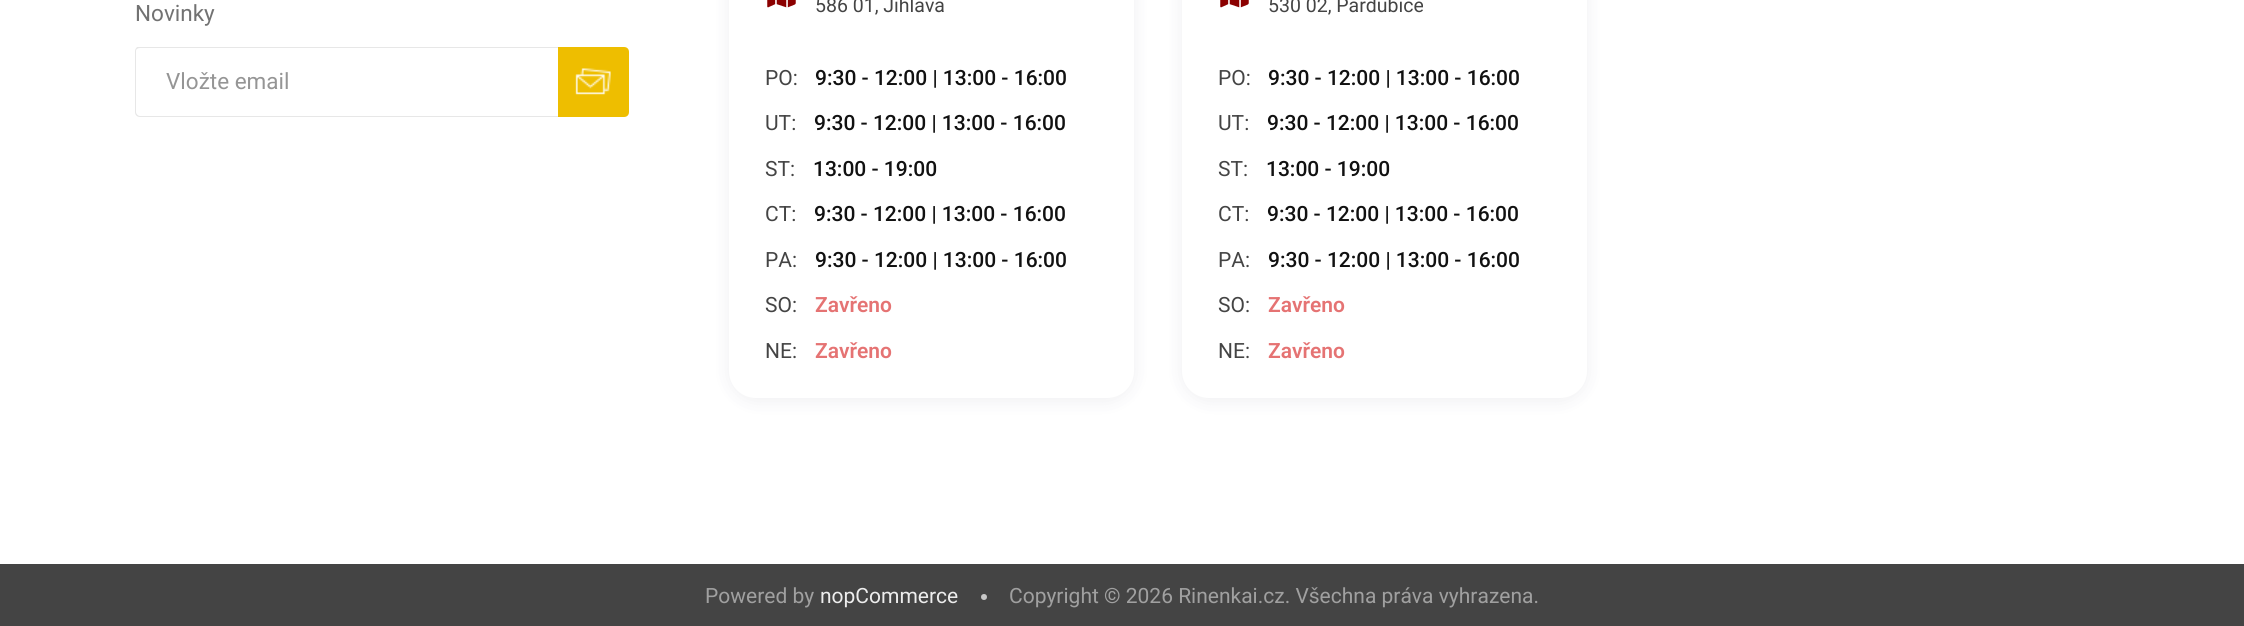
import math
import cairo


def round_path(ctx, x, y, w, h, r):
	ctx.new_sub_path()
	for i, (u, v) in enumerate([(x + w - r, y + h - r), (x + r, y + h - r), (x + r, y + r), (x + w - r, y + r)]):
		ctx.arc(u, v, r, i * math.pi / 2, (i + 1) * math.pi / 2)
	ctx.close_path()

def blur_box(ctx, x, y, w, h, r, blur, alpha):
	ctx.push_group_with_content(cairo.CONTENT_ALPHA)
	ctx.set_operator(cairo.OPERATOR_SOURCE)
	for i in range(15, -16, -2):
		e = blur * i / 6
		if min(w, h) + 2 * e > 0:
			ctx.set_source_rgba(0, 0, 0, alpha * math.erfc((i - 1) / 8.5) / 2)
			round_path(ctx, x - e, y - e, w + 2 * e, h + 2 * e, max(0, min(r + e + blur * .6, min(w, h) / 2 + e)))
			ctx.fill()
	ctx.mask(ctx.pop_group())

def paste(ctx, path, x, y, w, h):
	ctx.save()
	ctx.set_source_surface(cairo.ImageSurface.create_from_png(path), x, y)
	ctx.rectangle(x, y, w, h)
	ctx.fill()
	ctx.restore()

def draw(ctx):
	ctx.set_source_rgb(1, 1, 1)
	ctx.paint()
	ctx.select_font_face('Roboto')
	ctx.set_font_size(22.5)
	ctx.set_source_rgb(0.447, 0.447, 0.447)
	ctx.move_to(135, 21)
	ctx.show_text('Novinky')
	ctx.save()
	ctx.rectangle(135, 47, 494, 70)
	ctx.clip()
	ctx.set_source_rgb(0.906, 0.906, 0.906)
	ctx.set_fill_rule(cairo.FILL_RULE_EVEN_ODD)
	ctx.new_path()
	ctx.move_to(140, 46)
	ctx.line_to(558, 46)
	ctx.line_to(558, 117)
	ctx.line_to(140, 117)
	ctx.curve_to(137, 117, 135, 115, 135, 112)
	ctx.line_to(135, 51)
	ctx.curve_to(135, 49, 137, 46, 140, 46)
	ctx.close_path()
	ctx.move_to(140, 48)
	ctx.line_to(558, 48)
	ctx.line_to(558, 116)
	ctx.line_to(140, 116)
	ctx.curve_to(138, 116, 136, 114, 136, 112)
	ctx.line_to(136, 51)
	ctx.curve_to(136, 49, 138, 48, 140, 48)
	ctx.close_path()
	ctx.fill()
	ctx.restore()
	ctx.set_source_rgb(0.584, 0.584, 0.584)
	ctx.move_to(166, 89)
	ctx.show_text('Vložte email')
	ctx.set_source_rgb(0.933, 0.745, 0)
	ctx.new_path()
	ctx.move_to(558, 47)
	ctx.line_to(624, 47)
	ctx.curve_to(627, 47, 629, 49, 629, 52)
	ctx.line_to(629, 112)
	ctx.curve_to(629, 115, 627, 117, 624, 117)
	ctx.line_to(558, 117)
	ctx.close_path()
	ctx.fill()
	paste(ctx, 'media/1.png', 575, 68, 36, 27)
	ctx.set_source_rgb(0.157, 0.157, 0.314)
	blur_box(ctx, 729, -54, 405, 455, 27, 9, 0.08)
	ctx.set_source_rgb(1, 1, 1)
	round_path(ctx, 729, -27, 405, 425, 27)
	ctx.fill()
	paste(ctx, 'media/2.png', 767, 0, 29, 8)
	ctx.set_font_size(19.5)
	ctx.set_source_rgb(0.267, 0.267, 0.267)
	ctx.move_to(815, 12)
	ctx.show_text('586 01, Jihlava')
	ctx.set_font_size(21)
	ctx.move_to(765, 85)
	ctx.show_text('PO:')
	ctx.select_font_face('Roboto Medium')
	ctx.set_source_rgb(0.067, 0.067, 0.067)
	ctx.move_to(815, 85)
	ctx.show_text('9:30 - 12:00 | 13:00 - 16:00')
	ctx.select_font_face('Roboto')
	ctx.set_source_rgb(0.267, 0.267, 0.267)
	ctx.move_to(765, 130)
	ctx.show_text('UT:')
	ctx.select_font_face('Roboto Medium')
	ctx.set_source_rgb(0.067, 0.067, 0.067)
	ctx.move_to(814, 130)
	ctx.show_text('9:30 - 12:00 | 13:00 - 16:00')
	ctx.select_font_face('Roboto')
	ctx.set_source_rgb(0.267, 0.267, 0.267)
	ctx.move_to(765, 176)
	ctx.show_text('ST:')
	ctx.select_font_face('Roboto Medium')
	ctx.set_source_rgb(0.067, 0.067, 0.067)
	ctx.move_to(813, 176)
	ctx.show_text('13:00 - 19:00')
	ctx.select_font_face('Roboto')
	ctx.set_source_rgb(0.267, 0.267, 0.267)
	ctx.move_to(765, 221)
	ctx.show_text('CT:')
	ctx.select_font_face('Roboto Medium')
	ctx.set_source_rgb(0.067, 0.067, 0.067)
	ctx.move_to(814, 221)
	ctx.show_text('9:30 - 12:00 | 13:00 - 16:00')
	ctx.select_font_face('Roboto')
	ctx.set_source_rgb(0.267, 0.267, 0.267)
	ctx.move_to(765, 267)
	ctx.show_text('PA:')
	ctx.select_font_face('Roboto Medium')
	ctx.set_source_rgb(0.067, 0.067, 0.067)
	ctx.move_to(815, 267)
	ctx.show_text('9:30 - 12:00 | 13:00 - 16:00')
	ctx.select_font_face('Roboto')
	ctx.set_source_rgb(0.267, 0.267, 0.267)
	ctx.move_to(765, 312)
	ctx.show_text('SO:')
	ctx.select_font_face('Roboto SemiBold')
	ctx.set_source_rgb(0.898, 0.451, 0.451)
	ctx.move_to(815, 312)
	ctx.show_text('Zavřeno')
	ctx.select_font_face('Roboto')
	ctx.set_source_rgb(0.267, 0.267, 0.267)
	ctx.move_to(765, 358)
	ctx.show_text('NE:')
	ctx.select_font_face('Roboto SemiBold')
	ctx.set_source_rgb(0.898, 0.451, 0.451)
	ctx.move_to(815, 358)
	ctx.show_text('Zavřeno')
	ctx.set_source_rgb(0.157, 0.157, 0.314)
	blur_box(ctx, 1182, -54, 405, 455, 27, 9, 0.08)
	ctx.set_source_rgb(1, 1, 1)
	round_path(ctx, 1182, -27, 405, 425, 27)
	ctx.fill()
	paste(ctx, 'media/2.png', 1220, 0, 29, 8)
	ctx.select_font_face('Roboto')
	ctx.set_font_size(19.5)
	ctx.set_source_rgb(0.267, 0.267, 0.267)
	ctx.move_to(1268, 12)
	ctx.show_text('530 02, Pardubice')
	ctx.set_font_size(21)
	ctx.move_to(1218, 85)
	ctx.show_text('PO:')
	ctx.select_font_face('Roboto Medium')
	ctx.set_source_rgb(0.067, 0.067, 0.067)
	ctx.move_to(1268, 85)
	ctx.show_text('9:30 - 12:00 | 13:00 - 16:00')
	ctx.select_font_face('Roboto')
	ctx.set_source_rgb(0.267, 0.267, 0.267)
	ctx.move_to(1218, 130)
	ctx.show_text('UT:')
	ctx.select_font_face('Roboto Medium')
	ctx.set_source_rgb(0.067, 0.067, 0.067)
	ctx.move_to(1267, 130)
	ctx.show_text('9:30 - 12:00 | 13:00 - 16:00')
	ctx.select_font_face('Roboto')
	ctx.set_source_rgb(0.267, 0.267, 0.267)
	ctx.move_to(1218, 176)
	ctx.show_text('ST:')
	ctx.select_font_face('Roboto Medium')
	ctx.set_source_rgb(0.067, 0.067, 0.067)
	ctx.move_to(1266, 176)
	ctx.show_text('13:00 - 19:00')
	ctx.select_font_face('Roboto')
	ctx.set_source_rgb(0.267, 0.267, 0.267)
	ctx.move_to(1218, 221)
	ctx.show_text('CT:')
	ctx.select_font_face('Roboto Medium')
	ctx.set_source_rgb(0.067, 0.067, 0.067)
	ctx.move_to(1267, 221)
	ctx.show_text('9:30 - 12:00 | 13:00 - 16:00')
	ctx.select_font_face('Roboto')
	ctx.set_source_rgb(0.267, 0.267, 0.267)
	ctx.move_to(1218, 267)
	ctx.show_text('PA:')
	ctx.select_font_face('Roboto Medium')
	ctx.set_source_rgb(0.067, 0.067, 0.067)
	ctx.move_to(1268, 267)
	ctx.show_text('9:30 - 12:00 | 13:00 - 16:00')
	ctx.select_font_face('Roboto')
	ctx.set_source_rgb(0.267, 0.267, 0.267)
	ctx.move_to(1218, 312)
	ctx.show_text('SO:')
	ctx.select_font_face('Roboto SemiBold')
	ctx.set_source_rgb(0.898, 0.451, 0.451)
	ctx.move_to(1268, 312)
	ctx.show_text('Zavřeno')
	ctx.select_font_face('Roboto')
	ctx.set_source_rgb(0.267, 0.267, 0.267)
	ctx.move_to(1218, 358)
	ctx.show_text('NE:')
	ctx.select_font_face('Roboto SemiBold')
	ctx.set_source_rgb(0.898, 0.451, 0.451)
	ctx.move_to(1268, 358)
	ctx.show_text('Zavřeno')
	ctx.set_source_rgb(0.267, 0.267, 0.267)
	ctx.rectangle(0, 564, 2244, 62)
	ctx.fill()
	ctx.select_font_face('Roboto')
	ctx.set_source_rgb(0.627, 0.627, 0.627)
	ctx.move_to(705, 603)
	ctx.show_text('Powered by')
	ctx.set_source_rgb(0.929, 0.929, 0.929)
	ctx.move_to(820, 603)
	ctx.show_text('nopCommerce')
	ctx.set_source_rgb(0.784, 0.784, 0.784)
	ctx.new_path()
	ctx.arc(984, 597, 3, 0, 2 * math.pi)
	ctx.fill()
	ctx.set_source_rgb(0.627, 0.627, 0.627)
	ctx.move_to(1009, 603)
	ctx.show_text('Copyright © 2026 Rinenkai.cz. Všechna práva vyhrazena.')


surface = cairo.ImageSurface(cairo.FORMAT_RGB24, 2244, 626)
ctx = cairo.Context(surface)
options = cairo.FontOptions()
options.set_hint_metrics(cairo.HINT_METRICS_OFF)
options.set_hint_style(cairo.HINT_STYLE_NONE)
ctx.set_font_options(options)
ctx.set_miter_limit(4)
draw(ctx)
surface.write_to_png('image.png')
